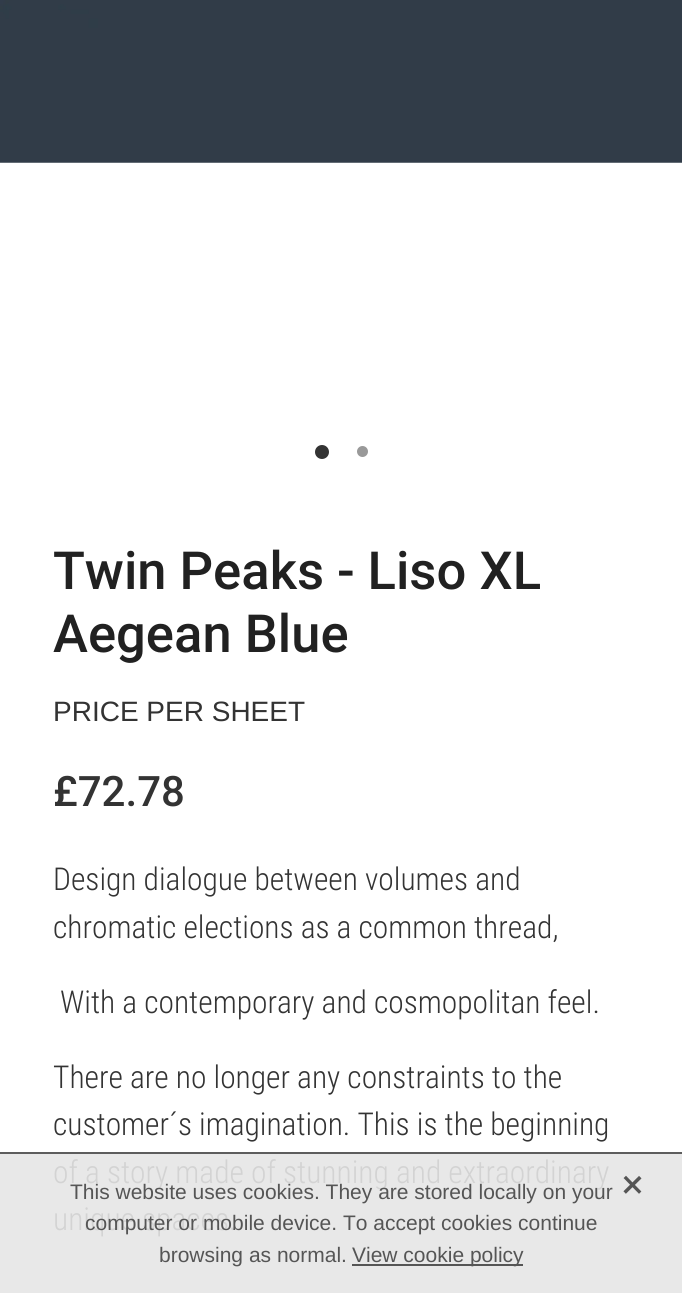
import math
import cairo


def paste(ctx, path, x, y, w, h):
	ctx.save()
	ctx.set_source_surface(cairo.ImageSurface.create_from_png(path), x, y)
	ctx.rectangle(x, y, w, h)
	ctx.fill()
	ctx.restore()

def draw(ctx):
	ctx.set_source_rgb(1, 1, 1)
	ctx.paint()
	ctx.set_source_rgb(0.91, 0.91, 0.91)
	ctx.rectangle(0, 1154, 682, 139)
	ctx.fill()
	paste(ctx, 'media/1.png', 0, 0, 682, 163)
	ctx.set_source_rgb(0.2, 0.2, 0.2)
	ctx.arc(322, 452, 7, 0, 2 * math.pi)
	ctx.fill()
	ctx.set_source_rgb(0.6, 0.6, 0.6)
	ctx.arc(362.5, 451.5, 5.5, 0, 2 * math.pi)
	ctx.fill()
	ctx.select_font_face('Roboto Medium')
	ctx.set_font_size(52.5)
	ctx.set_source_rgb(0.129, 0.129, 0.129)
	ctx.move_to(53, 589)
	ctx.show_text('Twin Peaks - Liso XL')
	ctx.move_to(53, 652)
	ctx.show_text('Aegean Blue')
	ctx.select_font_face('Liberation Sans')
	ctx.set_font_size(28)
	ctx.set_source_rgb(0.2, 0.2, 0.2)
	ctx.move_to(53, 721)
	ctx.show_text('PRICE PER SHEET')
	ctx.select_font_face('Roboto Medium')
	ctx.set_font_size(42)
	ctx.move_to(53, 806)
	ctx.show_text('£72.78')
	ctx.select_font_face('Roboto Condensed Light')
	ctx.set_font_size(31.5)
	for x, y, s in [
		(53, 890, 'Design dialogue between volumes and'),
		(53, 938, 'chromatic elections as a common thread,'),
		(60, 1013, 'With a contemporary and cosmopolitan feel.'),
		(53, 1088, 'There are no longer any constraints to the'),
		(53, 1135, 'customer´s imagination. This is the beginning'),
	]:
		ctx.move_to(x, y)
		ctx.show_text(s)
	ctx.set_source_rgb(0.827, 0.827, 0.827)
	ctx.move_to(53, 1183)
	ctx.show_text('of a story made of stunning and extraordinary')
	ctx.move_to(53, 1230)
	ctx.show_text('unique spaces.')
	ctx.set_source_rgb(0.365, 0.365, 0.365)
	ctx.rectangle(0, 1152, 682, 2)
	ctx.fill()
	ctx.select_font_face('Liberation Sans')
	ctx.set_font_size(21)
	ctx.set_source_rgb(0.333, 0.333, 0.333)
	for x, y, s in [
		(70, 1199, 'This website uses cookies. They are stored locally on your'),
		(85, 1230, 'computer or mobile device. To accept cookies continue'),
		(159, 1262, 'browsing as normal.'),
	]:
		ctx.move_to(x, y)
		ctx.show_text(s)
	ctx.rectangle(352, 1264, 171, 2)
	ctx.fill()
	ctx.move_to(352, 1262)
	ctx.show_text('View cookie policy')
	paste(ctx, 'media/2.png', 623, 1175, 19, 19)


surface = cairo.ImageSurface(cairo.FORMAT_RGB24, 682, 1293)
ctx = cairo.Context(surface)
options = cairo.FontOptions()
options.set_hint_metrics(cairo.HINT_METRICS_OFF)
options.set_hint_style(cairo.HINT_STYLE_NONE)
ctx.set_font_options(options)
ctx.set_miter_limit(4)
draw(ctx)
surface.write_to_png('image.png')
